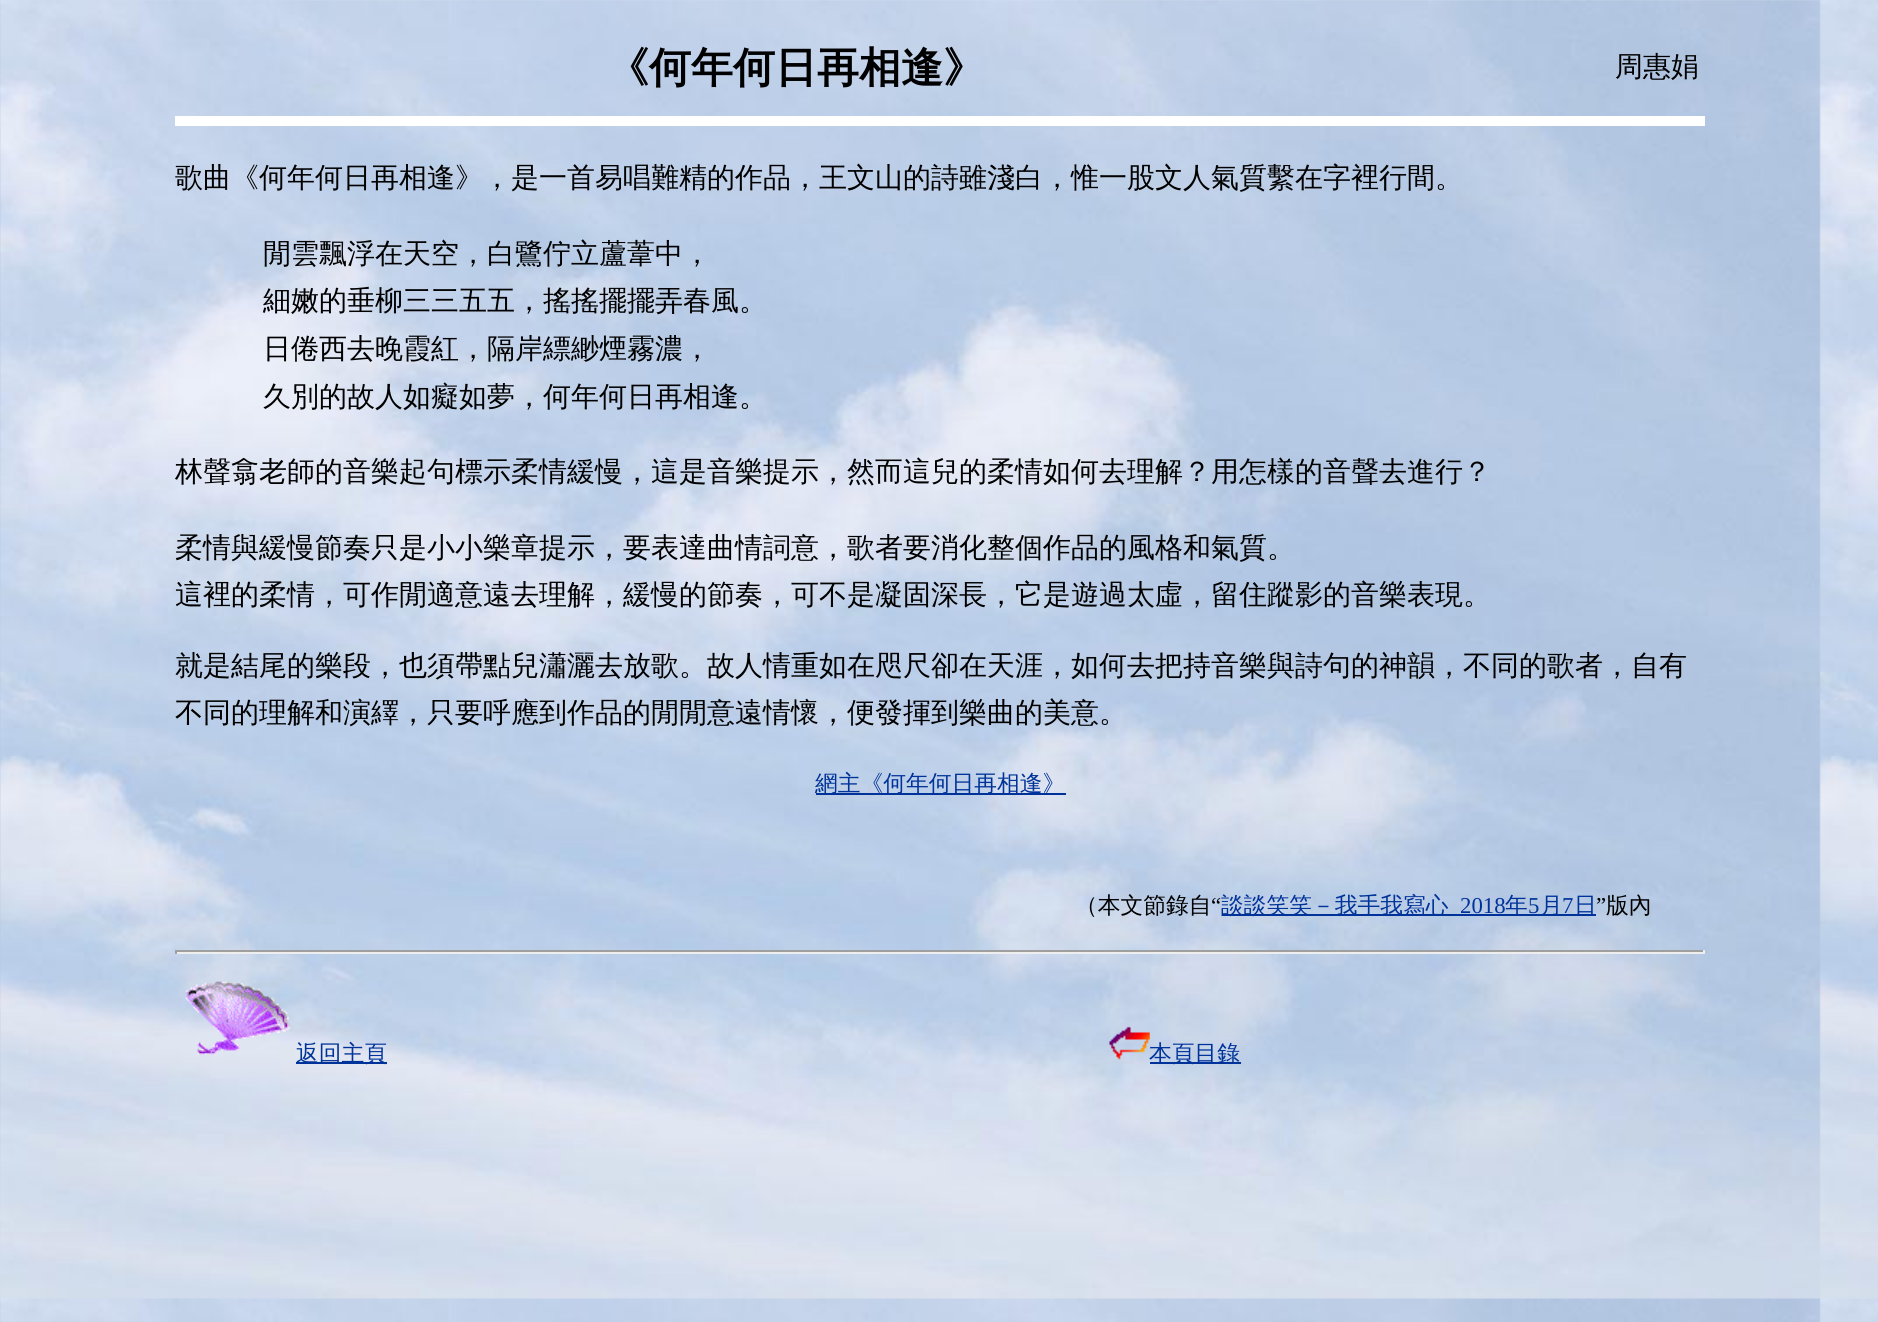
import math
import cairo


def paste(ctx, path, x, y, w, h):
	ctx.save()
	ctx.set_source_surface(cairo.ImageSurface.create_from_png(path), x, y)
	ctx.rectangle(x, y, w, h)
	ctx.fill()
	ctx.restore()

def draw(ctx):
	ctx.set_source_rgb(1, 1, 1)
	ctx.paint()
	paste(ctx, 'media/1.png', 0, 0, 1878, 1322)
	ctx.select_font_face('WenQuanYi Zen Hei', cairo.FONT_SLANT_NORMAL, cairo.FONT_WEIGHT_BOLD)
	ctx.set_font_size(42)
	ctx.set_source_rgb(0, 0, 0)
	ctx.move_to(607, 82)
	ctx.show_text('《何年何日再相逢》')
	ctx.select_font_face('WenQuanYi Zen Hei Medium')
	ctx.set_font_size(28)
	ctx.move_to(1615, 76)
	ctx.show_text('周惠娟')
	ctx.set_source_rgb(1, 1, 1)
	ctx.rectangle(175, 116, 1530, 10)
	ctx.fill()
	ctx.set_source_rgb(0, 0, 0)
	for x, y, s in [
		(175, 187, '歌曲《何年何日再相逢》，是一首易唱難精的作品，王文山的詩雖淺白，惟一股文人氣質繫在字裡行間。'),
		(263, 263, '閒雲飄浮在天空，白鷺佇立蘆葦中，'),
		(263, 310, '細嫩的垂柳三三五五，搖搖擺擺弄春風。'),
		(263, 358, '日倦西去晚霞紅，隔岸縹緲煙霧濃，'),
		(263, 406, '久別的故人如癡如夢，何年何日再相逢。'),
		(175, 481, '林聲翕老師的音樂起句標示柔情緩慢，這是音樂提示，然而這兒的柔情如何去理解？用怎樣的音聲去進行？'),
		(175, 557, '柔情與緩慢節奏只是小小樂章提示，要表達曲情詞意，歌者要消化整個作品的風格和氣質。'),
		(175, 604, '這裡的柔情，可作閒適意遠去理解，緩慢的節奏，可不是凝固深長，它是遊過太虛，留住蹤影的音樂表現。'),
		(175, 675, '就是結尾的樂段，也須帶點兒瀟灑去放歌。故人情重如在咫尺卻在天涯，如何去把持音樂與詩句的神韻，不同的歌者，自有'),
		(175, 722, '不同的理解和演繹，只要呼應到作品的閒閒意遠情懷，便發揮到樂曲的美意。'),
	]:
		ctx.move_to(x, y)
		ctx.show_text(s)
	ctx.set_source_rgb(0, 0.2, 0.6)
	ctx.rectangle(816, 793, 250, 2)
	ctx.fill()
	ctx.set_font_size(22.75)
	ctx.move_to(815, 791)
	ctx.show_text('網主《何年何日再相逢》')
	ctx.set_source_rgb(0, 0, 0)
	ctx.move_to(1075, 913)
	ctx.show_text('（本文節錄自')
	ctx.select_font_face('Liberation Serif')
	ctx.move_to(1211, 913)
	ctx.show_text('“')
	ctx.set_source_rgb(0, 0.2, 0.6)
	ctx.rectangle(1222, 914, 374, 2)
	ctx.fill()
	ctx.select_font_face('WenQuanYi Zen Hei Medium')
	ctx.move_to(1221, 913)
	ctx.show_text('談談笑笑－我手我寫心')
	ctx.select_font_face('Liberation Serif')
	ctx.move_to(1460, 913)
	ctx.show_text('2018')
	ctx.select_font_face('WenQuanYi Zen Hei Medium')
	ctx.move_to(1505, 913)
	ctx.show_text('年')
	ctx.select_font_face('Liberation Serif')
	ctx.move_to(1528, 913)
	ctx.show_text('5')
	ctx.select_font_face('WenQuanYi Zen Hei Medium')
	ctx.move_to(1540, 913)
	ctx.show_text('月')
	ctx.select_font_face('Liberation Serif')
	ctx.move_to(1562, 913)
	ctx.show_text('7')
	ctx.select_font_face('WenQuanYi Zen Hei Medium')
	ctx.move_to(1574, 913)
	ctx.show_text('日')
	ctx.select_font_face('Liberation Serif')
	ctx.set_source_rgb(0, 0, 0)
	ctx.move_to(1596, 913)
	ctx.show_text('”')
	ctx.select_font_face('WenQuanYi Zen Hei Medium')
	ctx.move_to(1606, 913)
	ctx.show_text('版內')
	ctx.set_source_rgb(0.624, 0.624, 0.624)
	ctx.rectangle(175, 950, 1530, 2)
	ctx.fill()
	ctx.set_source_rgb(0.933, 0.933, 0.933)
	ctx.rectangle(1703, 950, 2, 4)
	ctx.rectangle(175, 952, 1530, 2)
	ctx.fill()
	ctx.set_source_rgb(0.624, 0.624, 0.624)
	ctx.rectangle(175, 950, 2, 4)
	ctx.fill()
	paste(ctx, 'media/2.png', 185, 981, 106, 74)
	ctx.set_source_rgb(0, 0.2, 0.6)
	ctx.rectangle(296, 1062, 91, 2)
	ctx.fill()
	ctx.move_to(296, 1061)
	ctx.show_text('返回主頁')
	paste(ctx, 'media/3.png', 1109, 1026, 41, 34)
	ctx.rectangle(1150, 1062, 91, 2)
	ctx.fill()
	ctx.move_to(1149, 1061)
	ctx.show_text('本頁目錄')


surface = cairo.ImageSurface(cairo.FORMAT_RGB24, 1878, 1322)
ctx = cairo.Context(surface)
options = cairo.FontOptions()
options.set_hint_metrics(cairo.HINT_METRICS_OFF)
options.set_hint_style(cairo.HINT_STYLE_NONE)
ctx.set_font_options(options)
ctx.set_miter_limit(4)
draw(ctx)
surface.write_to_png('image.png')
